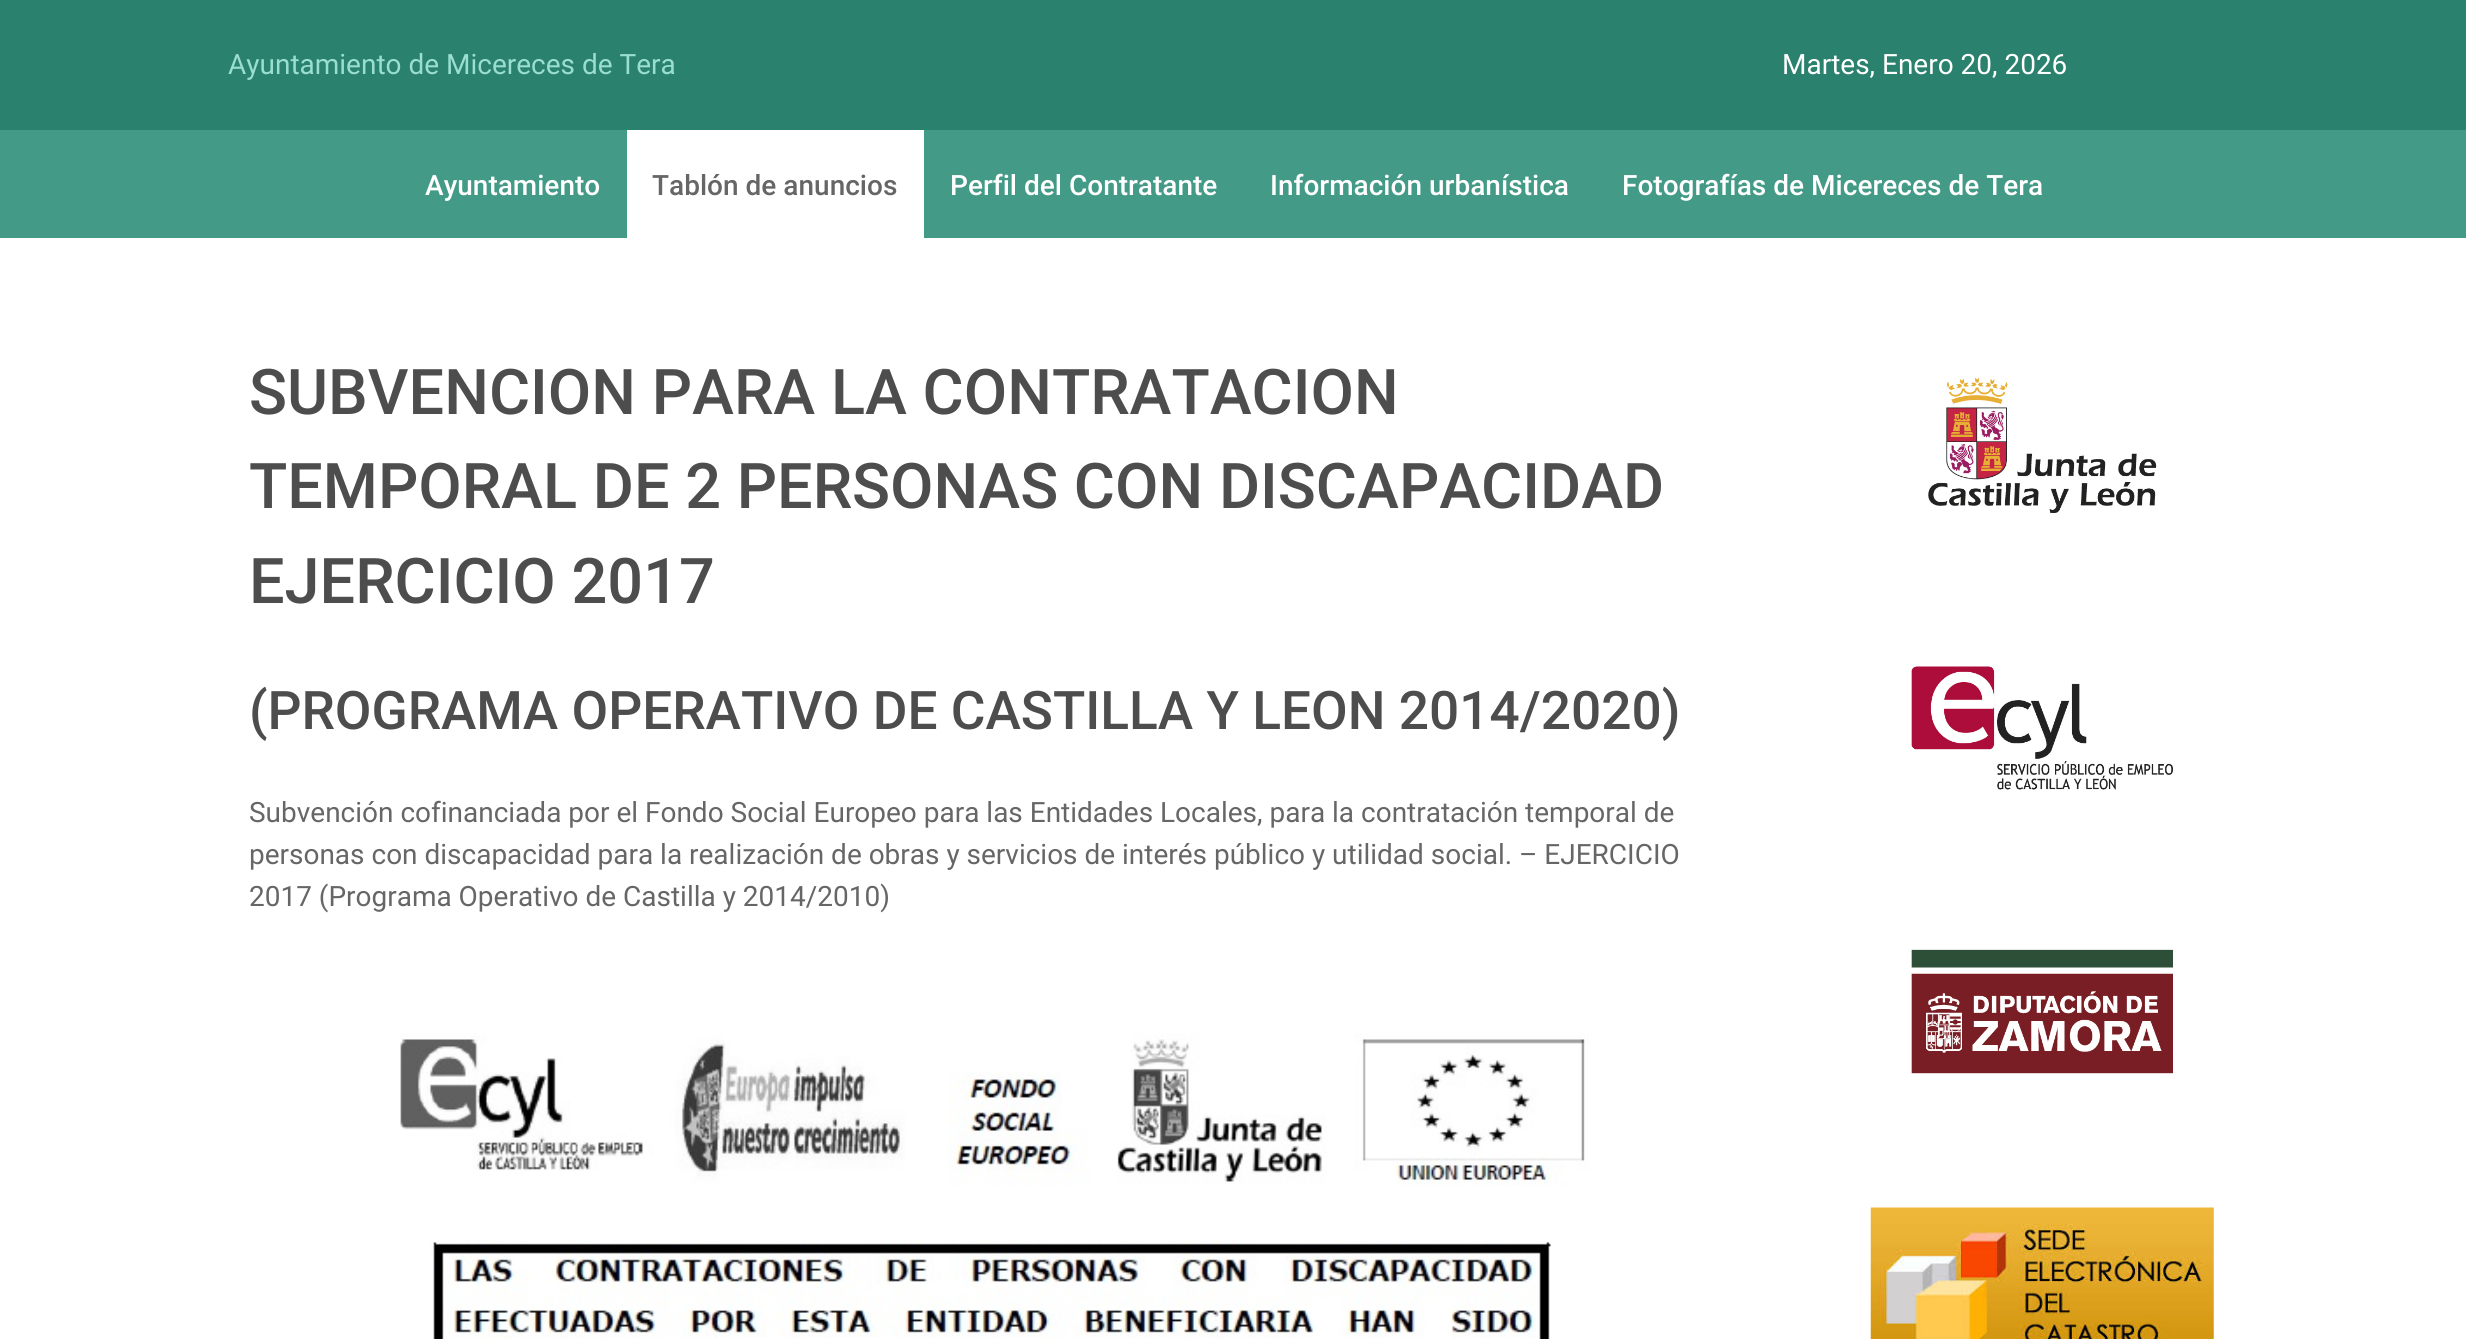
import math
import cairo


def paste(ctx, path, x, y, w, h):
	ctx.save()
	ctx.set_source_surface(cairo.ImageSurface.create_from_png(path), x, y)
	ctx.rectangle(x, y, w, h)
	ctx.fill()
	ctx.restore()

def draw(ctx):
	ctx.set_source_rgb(1, 1, 1)
	ctx.paint()
	ctx.set_source_rgb(0.165, 0.506, 0.427)
	ctx.rectangle(0, 0, 2466, 130)
	ctx.fill()
	ctx.select_font_face('Roboto')
	ctx.set_font_size(28)
	ctx.set_source_rgb(0.6, 0.871, 0.808)
	ctx.move_to(228, 74)
	ctx.show_text('Ayuntamiento de Micereces de Tera')
	ctx.set_source_rgb(1, 1, 1)
	ctx.move_to(1782, 74)
	ctx.show_text('Martes, Enero 20, 2026')
	ctx.set_source_rgb(0.263, 0.604, 0.525)
	ctx.rectangle(0, 130, 2466, 108)
	ctx.fill()
	ctx.select_font_face('Roboto Medium')
	ctx.set_source_rgb(1, 1, 1)
	ctx.move_to(425, 195)
	ctx.show_text('Ayuntamiento')
	ctx.rectangle(627, 130, 297, 108)
	ctx.fill()
	ctx.set_source_rgb(0.4, 0.4, 0.4)
	ctx.move_to(652, 195)
	ctx.show_text('Tablón de anuncios')
	ctx.set_source_rgb(1, 1, 1)
	for x, y, s in [
		(950, 195, 'Perfil del Contratante'),
		(1270, 195, 'Información urbanística'),
		(1622, 195, 'Fotografías de Micereces de Tera'),
	]:
		ctx.move_to(x, y)
		ctx.show_text(s)
	ctx.set_font_size(63)
	ctx.set_source_rgb(0.302, 0.302, 0.302)
	for x, y, s in [
		(249, 414, 'SUBVENCION PARA LA CONTRATACION'),
		(249, 508, 'TEMPORAL DE 2 PERSONAS CON DISCAPACIDAD'),
		(249, 603, 'EJERCICIO 2017'),
	]:
		ctx.move_to(x, y)
		ctx.show_text(s)
	ctx.set_font_size(53.2)
	ctx.move_to(249, 729)
	ctx.show_text('(PROGRAMA OPERATIVO DE CASTILLA Y LEON 2014/2020)')
	ctx.select_font_face('Roboto')
	ctx.set_font_size(28)
	ctx.set_source_rgb(0.4, 0.4, 0.4)
	for x, y, s in [
		(249, 822, 'Subvención cofinanciada por el Fondo Social Europeo para las Entidades Locales, para la contratación temporal de'),
		(249, 864, 'personas con discapacidad para la realización de obras y servicios de interés público y utilidad social. – EJERCICIO'),
		(249, 906, '2017 (Programa Operativo de Castilla y 2014/2010)'),
	]:
		ctx.move_to(x, y)
		ctx.show_text(s)
	paste(ctx, 'media/1.png', 400, 1033, 1189, 306)
	paste(ctx, 'media/2.png', 1928, 377, 229, 136)
	paste(ctx, 'media/3.png', 1911, 666, 262, 124)
	paste(ctx, 'media/4.png', 1911, 949, 262, 125)
	paste(ctx, 'media/5.png', 1870, 1207, 344, 132)


surface = cairo.ImageSurface(cairo.FORMAT_RGB24, 2466, 1339)
ctx = cairo.Context(surface)
options = cairo.FontOptions()
options.set_hint_metrics(cairo.HINT_METRICS_OFF)
options.set_hint_style(cairo.HINT_STYLE_NONE)
ctx.set_font_options(options)
ctx.set_miter_limit(4)
draw(ctx)
surface.write_to_png('image.png')
